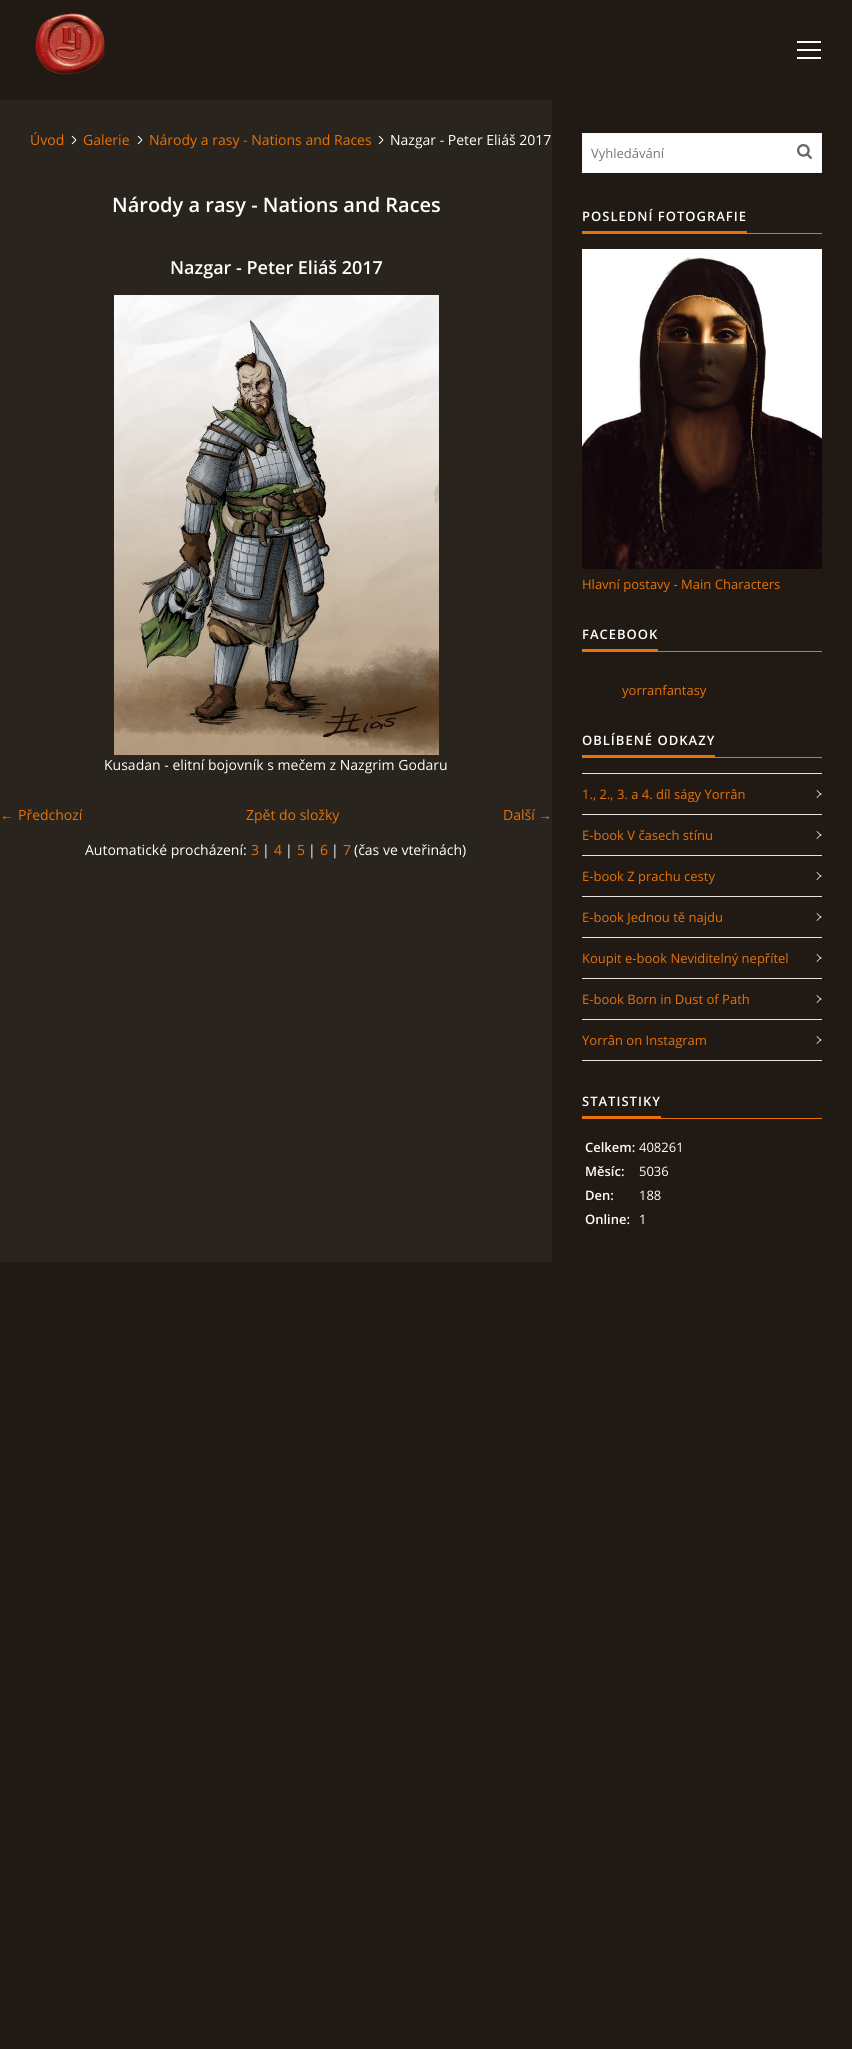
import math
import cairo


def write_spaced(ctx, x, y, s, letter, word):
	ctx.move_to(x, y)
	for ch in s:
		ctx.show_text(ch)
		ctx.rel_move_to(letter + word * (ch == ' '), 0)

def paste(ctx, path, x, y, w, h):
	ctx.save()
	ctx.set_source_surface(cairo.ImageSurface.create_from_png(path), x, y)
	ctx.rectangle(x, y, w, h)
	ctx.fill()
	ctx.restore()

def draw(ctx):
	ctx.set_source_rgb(0.129, 0.102, 0.082)
	ctx.paint()
	paste(ctx, 'media/1.png', 35, 13, 70, 62)
	paste(ctx, 'media/2.png', 797, 41, 24, 18)
	ctx.set_source_rgb(0.161, 0.141, 0.118)
	ctx.rectangle(0, 100, 552, 1162)
	ctx.fill()
	paste(ctx, 'media/3.png', 71, 135, 6, 10)
	ctx.select_font_face('Open Sans')
	ctx.set_font_size(14)
	ctx.set_source_rgb(0.902, 0.447, 0.035)
	ctx.move_to(30, 145)
	ctx.show_text('Úvod')
	paste(ctx, 'media/3.png', 137, 135, 6, 10)
	ctx.move_to(83, 145)
	ctx.show_text('Galerie')
	paste(ctx, 'media/3.png', 378, 135, 6, 10)
	ctx.move_to(149, 145)
	ctx.show_text('Národy a rasy - Nations and Races')
	ctx.set_source_rgb(1, 1, 1)
	ctx.move_to(390, 145)
	ctx.show_text('Nazgar - Peter Eliáš 2017')
	ctx.select_font_face('Open Sans SemiBold')
	ctx.set_font_size(20)
	ctx.move_to(112, 212)
	ctx.show_text('Národy a rasy - Nations and Races')
	ctx.set_font_size(18)
	ctx.move_to(170, 274)
	ctx.show_text('Nazgar - Peter Eliáš 2017')
	paste(ctx, 'media/4.png', 114, 295, 325, 460)
	ctx.select_font_face('Open Sans')
	ctx.set_font_size(14)
	ctx.move_to(104, 770)
	ctx.show_text('Kusadan - elitní bojovník s mečem z Nazgrim Godaru')
	ctx.select_font_face('Liberation Serif')
	ctx.set_source_rgb(0.902, 0.447, 0.035)
	ctx.move_to(0, 820)
	ctx.show_text('←')
	ctx.select_font_face('Open Sans')
	for x, y, s in [
		(18, 820, 'Předchozí'),
		(246, 820, 'Zpět do složky'),
		(503, 820, 'Další'),
	]:
		ctx.move_to(x, y)
		ctx.show_text(s)
	ctx.select_font_face('Liberation Serif')
	ctx.move_to(538, 820)
	ctx.show_text('→')
	ctx.select_font_face('Open Sans')
	ctx.set_source_rgb(1, 1, 1)
	ctx.move_to(85, 855)
	ctx.show_text('Automatické procházení:')
	ctx.set_source_rgb(0.902, 0.447, 0.035)
	ctx.move_to(251, 855)
	ctx.show_text('3')
	ctx.set_source_rgb(1, 1, 1)
	ctx.move_to(262, 855)
	ctx.show_text('|')
	ctx.set_source_rgb(0.902, 0.447, 0.035)
	ctx.move_to(274, 855)
	ctx.show_text('4')
	ctx.set_source_rgb(1, 1, 1)
	ctx.move_to(285, 855)
	ctx.show_text('|')
	ctx.set_source_rgb(0.902, 0.447, 0.035)
	ctx.move_to(297, 855)
	ctx.show_text('5')
	ctx.set_source_rgb(1, 1, 1)
	ctx.move_to(308, 855)
	ctx.show_text('|')
	ctx.set_source_rgb(0.902, 0.447, 0.035)
	ctx.move_to(320, 855)
	ctx.show_text('6')
	ctx.set_source_rgb(1, 1, 1)
	ctx.move_to(331, 855)
	ctx.show_text('|')
	ctx.set_source_rgb(0.902, 0.447, 0.035)
	ctx.move_to(343, 855)
	ctx.show_text('7')
	ctx.set_source_rgb(1, 1, 1)
	ctx.move_to(354, 855)
	ctx.show_text('(čas ve vteřinách)')
	ctx.rectangle(582.5, 133.5, 239, 39)
	ctx.fill_preserve()
	ctx.set_source_rgb(0.965, 0.965, 0.965)
	ctx.set_line_width(1)
	ctx.stroke()
	ctx.set_font_size(13)
	ctx.set_source_rgb(0.459, 0.459, 0.459)
	ctx.move_to(591, 158)
	ctx.show_text('Vyhledávání')
	paste(ctx, 'media/5.png', 797, 144, 15, 15)
	ctx.select_font_face('Open Sans SemiBold')
	ctx.set_source_rgb(1, 1, 1)
	write_spaced(ctx, 582, 221, 'POSLEDNÍ FOTOGRAFIE', 1, 0)
	ctx.set_source_rgb(0.902, 0.447, 0.035)
	ctx.rectangle(582, 231, 165, 2)
	ctx.fill()
	ctx.rectangle(582, 233, 240, 1)
	ctx.fill()
	paste(ctx, 'media/6.png', 582, 249, 240, 320)
	ctx.select_font_face('Open Sans')
	ctx.move_to(582, 589)
	ctx.show_text('Hlavní postavy - Main Characters')
	ctx.select_font_face('Open Sans SemiBold')
	ctx.set_source_rgb(1, 1, 1)
	write_spaced(ctx, 582, 639, 'FACEBOOK', 1, 0)
	ctx.set_source_rgb(0.902, 0.447, 0.035)
	ctx.rectangle(582, 649, 76, 2)
	ctx.fill()
	ctx.rectangle(582, 651, 240, 1)
	ctx.fill()
	ctx.select_font_face('Open Sans')
	ctx.move_to(622, 695)
	ctx.show_text('yorranfantasy')
	ctx.select_font_face('Open Sans SemiBold')
	ctx.set_source_rgb(1, 1, 1)
	write_spaced(ctx, 582, 745, 'OBLÍBENÉ ODKAZY', 1, 0)
	ctx.set_source_rgb(0.902, 0.447, 0.035)
	ctx.rectangle(582, 755, 133, 2)
	ctx.rectangle(582, 757, 240, 1)
	ctx.fill()
	ctx.set_source_rgb(0.91, 0.89, 0.875)
	ctx.rectangle(582, 773, 240, 1)
	ctx.rectangle(582, 814, 240, 1)
	ctx.fill()
	ctx.select_font_face('Open Sans')
	ctx.set_source_rgb(0.902, 0.447, 0.035)
	ctx.move_to(582, 799)
	ctx.show_text('1., 2., 3. a 4. díl ságy Yorrân')
	ctx.set_source_rgb(1, 1, 1)
	ctx.new_path()
	ctx.move_to(817, 790)
	ctx.line_to(821.5, 794.5)
	ctx.line_to(821, 795)
	ctx.line_to(816.5, 790.5)
	ctx.close_path()
	ctx.fill()
	ctx.new_path()
	ctx.move_to(816.5, 797.5)
	ctx.line_to(821, 793)
	ctx.line_to(821.5, 793.5)
	ctx.line_to(817, 798)
	ctx.close_path()
	ctx.fill()
	ctx.set_source_rgb(0.91, 0.89, 0.875)
	ctx.rectangle(582, 855, 240, 1)
	ctx.fill()
	ctx.set_source_rgb(0.902, 0.447, 0.035)
	ctx.move_to(582, 840)
	ctx.show_text('E-book V časech stínu')
	ctx.set_source_rgb(1, 1, 1)
	ctx.new_path()
	ctx.move_to(817, 831)
	ctx.line_to(821.5, 835.5)
	ctx.line_to(821, 836)
	ctx.line_to(816.5, 831.5)
	ctx.close_path()
	ctx.fill()
	ctx.new_path()
	ctx.move_to(816.5, 838.5)
	ctx.line_to(821, 834)
	ctx.line_to(821.5, 834.5)
	ctx.line_to(817, 839)
	ctx.close_path()
	ctx.fill()
	ctx.set_source_rgb(0.91, 0.89, 0.875)
	ctx.rectangle(582, 896, 240, 1)
	ctx.fill()
	ctx.set_source_rgb(0.902, 0.447, 0.035)
	ctx.move_to(582, 881)
	ctx.show_text('E-book Z prachu cesty')
	ctx.set_source_rgb(1, 1, 1)
	ctx.new_path()
	ctx.move_to(817, 872)
	ctx.line_to(821.5, 876.5)
	ctx.line_to(821, 877)
	ctx.line_to(816.5, 872.5)
	ctx.close_path()
	ctx.fill()
	ctx.new_path()
	ctx.move_to(816.5, 879.5)
	ctx.line_to(821, 875)
	ctx.line_to(821.5, 875.5)
	ctx.line_to(817, 880)
	ctx.close_path()
	ctx.fill()
	ctx.set_source_rgb(0.91, 0.89, 0.875)
	ctx.rectangle(582, 937, 240, 1)
	ctx.fill()
	ctx.set_source_rgb(0.902, 0.447, 0.035)
	ctx.move_to(582, 922)
	ctx.show_text('E-book Jednou tě najdu')
	ctx.set_source_rgb(1, 1, 1)
	ctx.new_path()
	ctx.move_to(817, 913)
	ctx.line_to(821.5, 917.5)
	ctx.line_to(821, 918)
	ctx.line_to(816.5, 913.5)
	ctx.close_path()
	ctx.fill()
	ctx.new_path()
	ctx.move_to(816.5, 920.5)
	ctx.line_to(821, 916)
	ctx.line_to(821.5, 916.5)
	ctx.line_to(817, 921)
	ctx.close_path()
	ctx.fill()
	ctx.set_source_rgb(0.91, 0.89, 0.875)
	ctx.rectangle(582, 978, 240, 1)
	ctx.fill()
	ctx.set_source_rgb(0.902, 0.447, 0.035)
	ctx.move_to(582, 963)
	ctx.show_text('Koupit e-book Neviditelný nepřítel')
	ctx.set_source_rgb(1, 1, 1)
	ctx.new_path()
	ctx.move_to(817, 954)
	ctx.line_to(821.5, 958.5)
	ctx.line_to(821, 959)
	ctx.line_to(816.5, 954.5)
	ctx.close_path()
	ctx.fill()
	ctx.new_path()
	ctx.move_to(816.5, 961.5)
	ctx.line_to(821, 957)
	ctx.line_to(821.5, 957.5)
	ctx.line_to(817, 962)
	ctx.close_path()
	ctx.fill()
	ctx.set_source_rgb(0.91, 0.89, 0.875)
	ctx.rectangle(582, 1019, 240, 1)
	ctx.fill()
	ctx.set_source_rgb(0.902, 0.447, 0.035)
	ctx.move_to(582, 1004)
	ctx.show_text('E-book Born in Dust of Path')
	ctx.set_source_rgb(1, 1, 1)
	ctx.new_path()
	ctx.move_to(817, 995)
	ctx.line_to(821.5, 999.5)
	ctx.line_to(821, 1000)
	ctx.line_to(816.5, 995.5)
	ctx.close_path()
	ctx.fill()
	ctx.new_path()
	ctx.move_to(816.5, 1002.5)
	ctx.line_to(821, 998)
	ctx.line_to(821.5, 998.5)
	ctx.line_to(817, 1003)
	ctx.close_path()
	ctx.fill()
	ctx.set_source_rgb(0.91, 0.89, 0.875)
	ctx.rectangle(582, 1060, 240, 1)
	ctx.fill()
	ctx.set_source_rgb(0.902, 0.447, 0.035)
	ctx.move_to(582, 1045)
	ctx.show_text('Yorrân on Instagram')
	ctx.set_source_rgb(1, 1, 1)
	ctx.new_path()
	ctx.move_to(817, 1036)
	ctx.line_to(821.5, 1040.5)
	ctx.line_to(821, 1041)
	ctx.line_to(816.5, 1036.5)
	ctx.close_path()
	ctx.fill()
	ctx.new_path()
	ctx.move_to(816.5, 1043.5)
	ctx.line_to(821, 1039)
	ctx.line_to(821.5, 1039.5)
	ctx.line_to(817, 1044)
	ctx.close_path()
	ctx.fill()
	ctx.select_font_face('Open Sans SemiBold')
	write_spaced(ctx, 582, 1106, 'STATISTIKY', 1, 0)
	ctx.set_source_rgb(0.902, 0.447, 0.035)
	ctx.rectangle(582, 1116, 79, 2)
	ctx.fill()
	ctx.rectangle(582, 1118, 240, 1)
	ctx.fill()
	ctx.set_source_rgb(1, 1, 1)
	ctx.move_to(585, 1152)
	ctx.show_text('Celkem:')
	ctx.select_font_face('Open Sans')
	ctx.move_to(639, 1152)
	ctx.show_text('408261')
	ctx.select_font_face('Open Sans SemiBold')
	ctx.move_to(585, 1176)
	ctx.show_text('Měsíc:')
	ctx.select_font_face('Open Sans')
	ctx.move_to(639, 1176)
	ctx.show_text('5036')
	ctx.select_font_face('Open Sans SemiBold')
	ctx.move_to(585, 1200)
	ctx.show_text('Den:')
	ctx.select_font_face('Open Sans')
	ctx.move_to(639, 1200)
	ctx.show_text('188')
	ctx.select_font_face('Open Sans SemiBold')
	ctx.move_to(585, 1224)
	ctx.show_text('Online:')
	ctx.select_font_face('Open Sans')
	ctx.move_to(639, 1224)
	ctx.show_text('1')


surface = cairo.ImageSurface(cairo.FORMAT_RGB24, 852, 2049)
ctx = cairo.Context(surface)
options = cairo.FontOptions()
options.set_hint_metrics(cairo.HINT_METRICS_OFF)
options.set_hint_style(cairo.HINT_STYLE_NONE)
ctx.set_font_options(options)
ctx.set_miter_limit(4)
draw(ctx)
surface.write_to_png('image.png')
